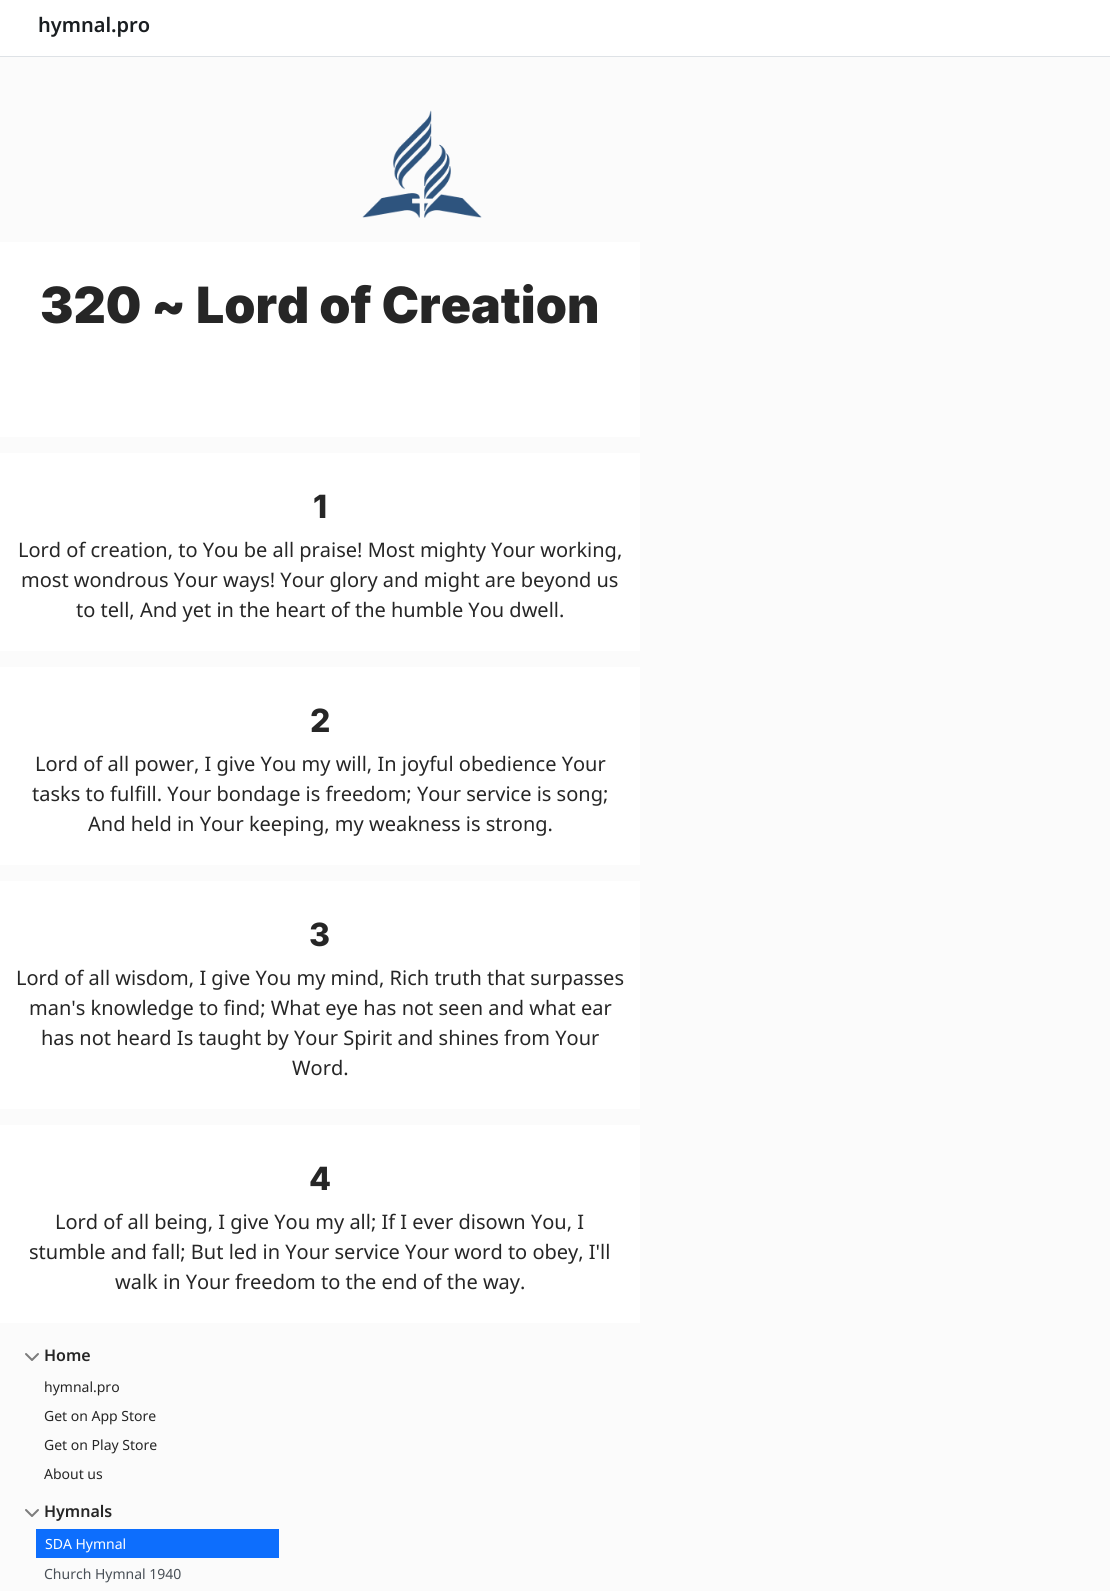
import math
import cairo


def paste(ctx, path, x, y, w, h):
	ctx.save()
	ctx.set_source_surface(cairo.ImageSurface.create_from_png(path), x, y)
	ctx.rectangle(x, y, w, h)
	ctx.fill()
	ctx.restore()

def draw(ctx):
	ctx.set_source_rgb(0.984, 0.984, 0.984)
	ctx.paint()
	ctx.set_source_rgb(1, 1, 1)
	ctx.rectangle(0, 0, 1110, 56)
	ctx.fill()
	ctx.set_source_rgb(0.871, 0.886, 0.902)
	ctx.rectangle(0, 56, 1110, 1)
	ctx.fill()
	ctx.select_font_face('Noto Sans SemiBold')
	ctx.set_font_size(20)
	ctx.set_source_rgb(0.102, 0.118, 0.129)
	ctx.move_to(38, 32)
	ctx.show_text('hymnal.pro')
	paste(ctx, 'media/1.png', 362, 110, 120, 108)
	ctx.set_source_rgb(1, 1, 1)
	ctx.rectangle(0, 242, 640, 195)
	ctx.fill()
	ctx.select_font_face('Inter Black')
	ctx.set_font_size(50)
	ctx.set_source_rgb(0.149, 0.149, 0.149)
	ctx.move_to(40, 323)
	ctx.show_text('320 ~ Lord of Creation')
	ctx.set_source_rgb(1, 1, 1)
	ctx.rectangle(0, 453, 640, 198)
	ctx.fill()
	ctx.select_font_face('Inter ExtraBold')
	ctx.set_font_size(32)
	ctx.set_source_rgb(0.149, 0.149, 0.149)
	ctx.move_to(313, 518)
	ctx.show_text('1')
	ctx.select_font_face('Noto Sans')
	ctx.set_font_size(20)
	for x, y, s in [
		(18, 557, 'Lord of creation, to You be all praise! Most mighty Your working,'),
		(21, 587, 'most wondrous Your ways! Your glory and might are beyond us'),
		(76, 617, 'to tell, And yet in the heart of the humble You dwell.'),
	]:
		ctx.move_to(x, y)
		ctx.show_text(s)
	ctx.set_source_rgb(1, 1, 1)
	ctx.rectangle(0, 667, 640, 198)
	ctx.fill()
	ctx.select_font_face('Inter ExtraBold')
	ctx.set_font_size(32)
	ctx.set_source_rgb(0.149, 0.149, 0.149)
	ctx.move_to(310, 732)
	ctx.show_text('2')
	ctx.select_font_face('Noto Sans')
	ctx.set_font_size(20)
	for x, y, s in [
		(35, 771, 'Lord of all power, I give You my will, In joyful obedience Your'),
		(32, 801, 'tasks to fulfill. Your bondage is freedom; Your service is song;'),
		(88, 831, 'And held in Your keeping, my weakness is strong.'),
	]:
		ctx.move_to(x, y)
		ctx.show_text(s)
	ctx.set_source_rgb(1, 1, 1)
	ctx.rectangle(0, 881, 640, 228)
	ctx.fill()
	ctx.select_font_face('Inter ExtraBold')
	ctx.set_font_size(32)
	ctx.set_source_rgb(0.149, 0.149, 0.149)
	ctx.move_to(309, 946)
	ctx.show_text('3')
	ctx.select_font_face('Noto Sans')
	ctx.set_font_size(20)
	for x, y, s in [
		(16, 985, 'Lord of all wisdom, I give You my mind, Rich truth that surpasses'),
		(29, 1015, 'man\'s knowledge to find; What eye has not seen and what ear'),
		(41, 1045, 'has not heard Is taught by Your Spirit and shines from Your'),
		(292, 1075, 'Word.'),
	]:
		ctx.move_to(x, y)
		ctx.show_text(s)
	ctx.set_source_rgb(1, 1, 1)
	ctx.rectangle(0, 1125, 640, 198)
	ctx.fill()
	ctx.select_font_face('Inter ExtraBold')
	ctx.set_font_size(32)
	ctx.set_source_rgb(0.149, 0.149, 0.149)
	ctx.move_to(309, 1190)
	ctx.show_text('4')
	ctx.select_font_face('Noto Sans')
	ctx.set_font_size(20)
	for x, y, s in [
		(55, 1229, 'Lord of all being, I give You my all; If I ever disown You, I'),
		(29, 1259, 'stumble and fall; But led in Your service Your word to obey, I\'ll'),
		(115, 1289, 'walk in Your freedom to the end of the way.'),
	]:
		ctx.move_to(x, y)
		ctx.show_text(s)
	paste(ctx, 'media/2.png', 25, 1353, 14, 8)
	ctx.select_font_face('Noto Sans SemiBold')
	ctx.set_font_size(16)
	ctx.move_to(44, 1361)
	ctx.show_text('Home')
	ctx.select_font_face('Noto Sans')
	ctx.set_font_size(14)
	for x, y, s in [
		(44, 1392, 'hymnal.pro'),
		(44, 1421, 'Get on App Store'),
		(44, 1450, 'Get on Play Store'),
		(44, 1479, 'About us'),
	]:
		ctx.move_to(x, y)
		ctx.show_text(s)
	paste(ctx, 'media/2.png', 25, 1509, 14, 8)
	ctx.select_font_face('Noto Sans SemiBold')
	ctx.set_font_size(16)
	ctx.move_to(44, 1517)
	ctx.show_text('Hymnals')
	ctx.set_source_rgb(0.051, 0.431, 0.992)
	ctx.rectangle(36, 1529, 243, 29)
	ctx.fill()
	ctx.select_font_face('Noto Sans')
	ctx.set_font_size(14)
	ctx.set_source_rgb(1, 1, 1)
	ctx.move_to(45, 1549)
	ctx.show_text('SDA Hymnal')
	ctx.set_source_rgb(0.286, 0.314, 0.341)
	ctx.move_to(44, 1579)
	ctx.show_text('Church Hymnal 1940')


surface = cairo.ImageSurface(cairo.FORMAT_RGB24, 1110, 1591)
ctx = cairo.Context(surface)
options = cairo.FontOptions()
options.set_hint_metrics(cairo.HINT_METRICS_OFF)
options.set_hint_style(cairo.HINT_STYLE_NONE)
ctx.set_font_options(options)
ctx.set_miter_limit(4)
draw(ctx)
surface.write_to_png('image.png')
